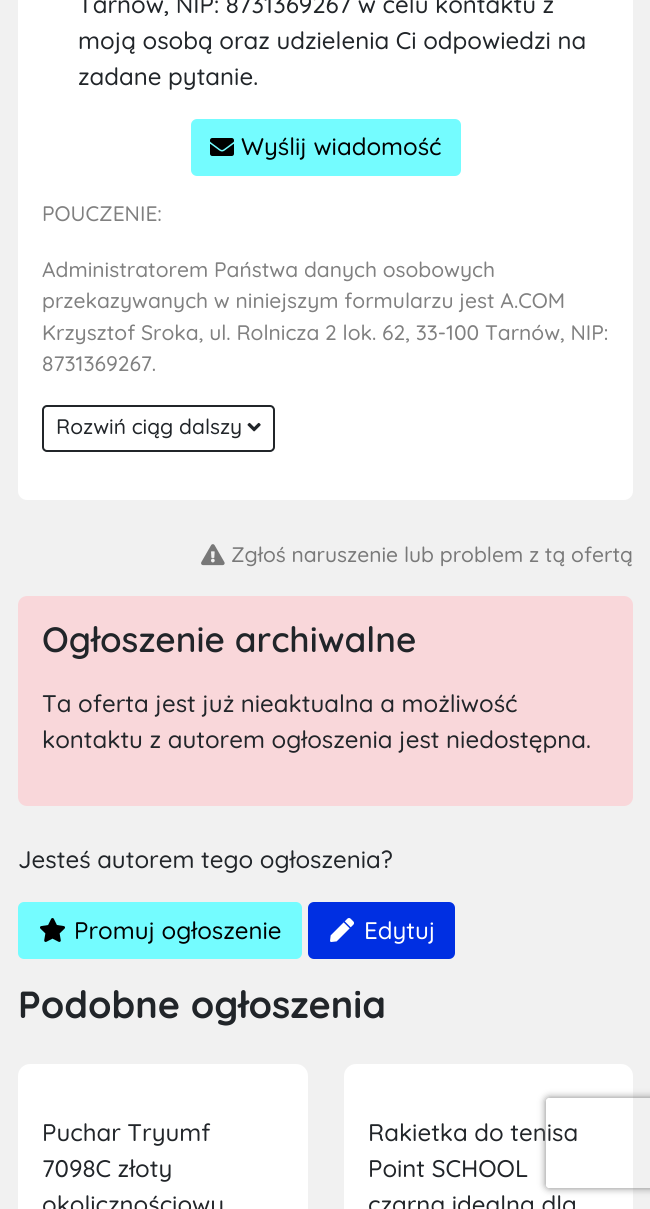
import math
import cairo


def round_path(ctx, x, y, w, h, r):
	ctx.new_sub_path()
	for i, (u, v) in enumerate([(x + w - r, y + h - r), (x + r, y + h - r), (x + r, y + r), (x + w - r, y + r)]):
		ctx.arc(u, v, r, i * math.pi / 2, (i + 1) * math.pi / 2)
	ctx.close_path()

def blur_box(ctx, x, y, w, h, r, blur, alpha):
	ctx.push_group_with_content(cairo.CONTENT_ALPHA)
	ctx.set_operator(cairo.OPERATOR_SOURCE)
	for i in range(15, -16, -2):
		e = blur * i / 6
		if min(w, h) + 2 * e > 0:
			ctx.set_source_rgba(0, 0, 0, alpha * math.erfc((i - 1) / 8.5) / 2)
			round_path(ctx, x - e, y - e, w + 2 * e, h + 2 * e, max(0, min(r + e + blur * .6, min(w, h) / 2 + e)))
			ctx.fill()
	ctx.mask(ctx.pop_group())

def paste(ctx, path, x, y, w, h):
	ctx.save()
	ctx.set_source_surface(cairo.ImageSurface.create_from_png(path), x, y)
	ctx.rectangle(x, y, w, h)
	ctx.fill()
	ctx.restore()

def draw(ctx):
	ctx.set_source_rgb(0.945, 0.945, 0.945)
	ctx.paint()
	ctx.set_source_rgb(1, 1, 1)
	round_path(ctx, 18, -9, 615, 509, 9)
	ctx.fill()
	ctx.select_font_face('Quicksand Medium')
	ctx.set_font_size(24)
	ctx.set_source_rgb(0.129, 0.145, 0.161)
	for x, y, s in [
		(78, 13, 'Tarnów, NIP: 8731369267 w celu kontaktu z'),
		(78, 49, 'moją osobą oraz udzielenia Ci odpowiedzi na'),
		(78, 85, 'zadane pytanie.'),
	]:
		ctx.move_to(x, y)
		ctx.show_text(s)
	ctx.set_source_rgb(0.455, 0.988, 1)
	round_path(ctx, 192, 120, 268, 55, 5)
	ctx.fill_preserve()
	ctx.stroke()
	paste(ctx, 'media/1.png', 210, 138, 24, 18)
	ctx.set_source_rgb(0, 0, 0)
	ctx.move_to(241, 155)
	ctx.show_text('Wyślij wiadomość')
	ctx.set_font_size(21)
	ctx.set_source_rgb(0.502, 0.502, 0.502)
	for x, y, s in [
		(42, 221, 'POUCZENIE:'),
		(42, 277, 'Administratorem Państwa danych osobowych'),
		(42, 308, 'przekazywanych w niniejszym formularzu jest A.COM'),
		(42, 340, 'Krzysztof Sroka, ul. Rolnicza 2 lok. 62, 33-100 Tarnów, NIP:'),
		(42, 371, '8731369267.'),
	]:
		ctx.move_to(x, y)
		ctx.show_text(s)
	round_path(ctx, 43, 406, 231, 45, 4)
	ctx.set_source_rgb(0.129, 0.145, 0.161)
	ctx.stroke()
	ctx.move_to(56, 434)
	ctx.show_text('Rozwiń ciąg dalszy')
	paste(ctx, 'media/2.png', 247, 422, 14, 10)
	paste(ctx, 'media/3.png', 201, 544, 24, 22)
	ctx.set_source_rgb(0.475, 0.475, 0.475)
	ctx.move_to(231, 562)
	ctx.show_text('Zgłoś naruszenie lub problem z tą ofertą')
	ctx.set_source_rgb(0.973, 0.843, 0.855)
	round_path(ctx, 18, 596, 615, 210, 9)
	ctx.fill()
	ctx.select_font_face('Quicksand SemiBold')
	ctx.set_font_size(35.1)
	ctx.set_source_rgb(0.129, 0.145, 0.161)
	ctx.move_to(42, 652)
	ctx.show_text('Ogłoszenie archiwalne')
	ctx.select_font_face('Quicksand Medium')
	ctx.set_font_size(24)
	for x, y, s in [
		(42, 712, 'Ta oferta jest już nieaktualna a możliwość'),
		(42, 748, 'kontaktu z autorem ogłoszenia jest niedostępna.'),
		(18, 868, 'Jesteś autorem tego ogłoszenia?'),
	]:
		ctx.move_to(x, y)
		ctx.show_text(s)
	ctx.set_source_rgb(0.455, 0.988, 1)
	round_path(ctx, 19, 903, 282, 55, 5)
	ctx.fill_preserve()
	ctx.stroke()
	paste(ctx, 'media/4.png', 40, 918, 25, 24)
	ctx.set_source_rgb(0, 0, 0)
	ctx.move_to(74, 939)
	ctx.show_text('Promuj ogłoszenie')
	ctx.set_source_rgb(0, 0.184, 0.886)
	round_path(ctx, 309, 903, 145, 55, 5)
	ctx.fill_preserve()
	ctx.stroke()
	paste(ctx, 'media/5.png', 330, 918, 24, 24)
	ctx.set_source_rgb(1, 1, 1)
	ctx.move_to(364, 939)
	ctx.show_text('Edytuj')
	ctx.select_font_face('Quicksand', cairo.FONT_SLANT_NORMAL, cairo.FONT_WEIGHT_BOLD)
	ctx.set_font_size(37.75)
	ctx.set_source_rgb(0.129, 0.145, 0.161)
	ctx.move_to(18, 1018)
	ctx.show_text('Podobne ogłoszenia')
	ctx.set_source_rgb(1, 1, 1)
	round_path(ctx, 18, 1064, 290, 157, 12)
	ctx.fill()
	ctx.select_font_face('Quicksand Medium')
	ctx.set_font_size(24)
	ctx.set_source_rgb(0.129, 0.145, 0.161)
	for x, y, s in [
		(42, 1141, 'Puchar Tryumf'),
		(42, 1177, '7098C złoty'),
		(42, 1213, 'okolicznościowy'),
	]:
		ctx.move_to(x, y)
		ctx.show_text(s)
	ctx.set_source_rgb(1, 1, 1)
	round_path(ctx, 344, 1064, 289, 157, 12)
	ctx.fill()
	ctx.set_source_rgb(0.129, 0.145, 0.161)
	for x, y, s in [
		(368, 1141, 'Rakietka do tenisa'),
		(368, 1177, 'Point SCHOOL'),
		(368, 1213, 'czarna idealna dla'),
	]:
		ctx.move_to(x, y)
		ctx.show_text(s)
	ctx.save()
	ctx.set_fill_rule(cairo.FILL_RULE_EVEN_ODD)
	ctx.new_path()
	ctx.move_to(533, 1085)
	ctx.line_to(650, 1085)
	ctx.line_to(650, 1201)
	ctx.line_to(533, 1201)
	ctx.close_path()
	ctx.move_to(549, 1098)
	ctx.line_to(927, 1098)
	ctx.curve_to(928.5, 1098, 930, 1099.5, 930, 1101)
	ctx.line_to(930, 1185)
	ctx.curve_to(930, 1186.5, 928.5, 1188, 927, 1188)
	ctx.line_to(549, 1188)
	ctx.curve_to(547.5, 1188, 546, 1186.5, 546, 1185)
	ctx.line_to(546, 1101)
	ctx.curve_to(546, 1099.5, 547.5, 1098, 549, 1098)
	ctx.close_path()
	ctx.clip()
	ctx.set_source_rgb(0.502, 0.502, 0.502)
	blur_box(ctx, 546, 1098, 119, 90, 3, 4, 1)
	ctx.restore()


surface = cairo.ImageSurface(cairo.FORMAT_RGB24, 650, 1209)
ctx = cairo.Context(surface)
options = cairo.FontOptions()
options.set_hint_metrics(cairo.HINT_METRICS_OFF)
options.set_hint_style(cairo.HINT_STYLE_NONE)
ctx.set_font_options(options)
ctx.set_miter_limit(4)
draw(ctx)
surface.write_to_png('image.png')
